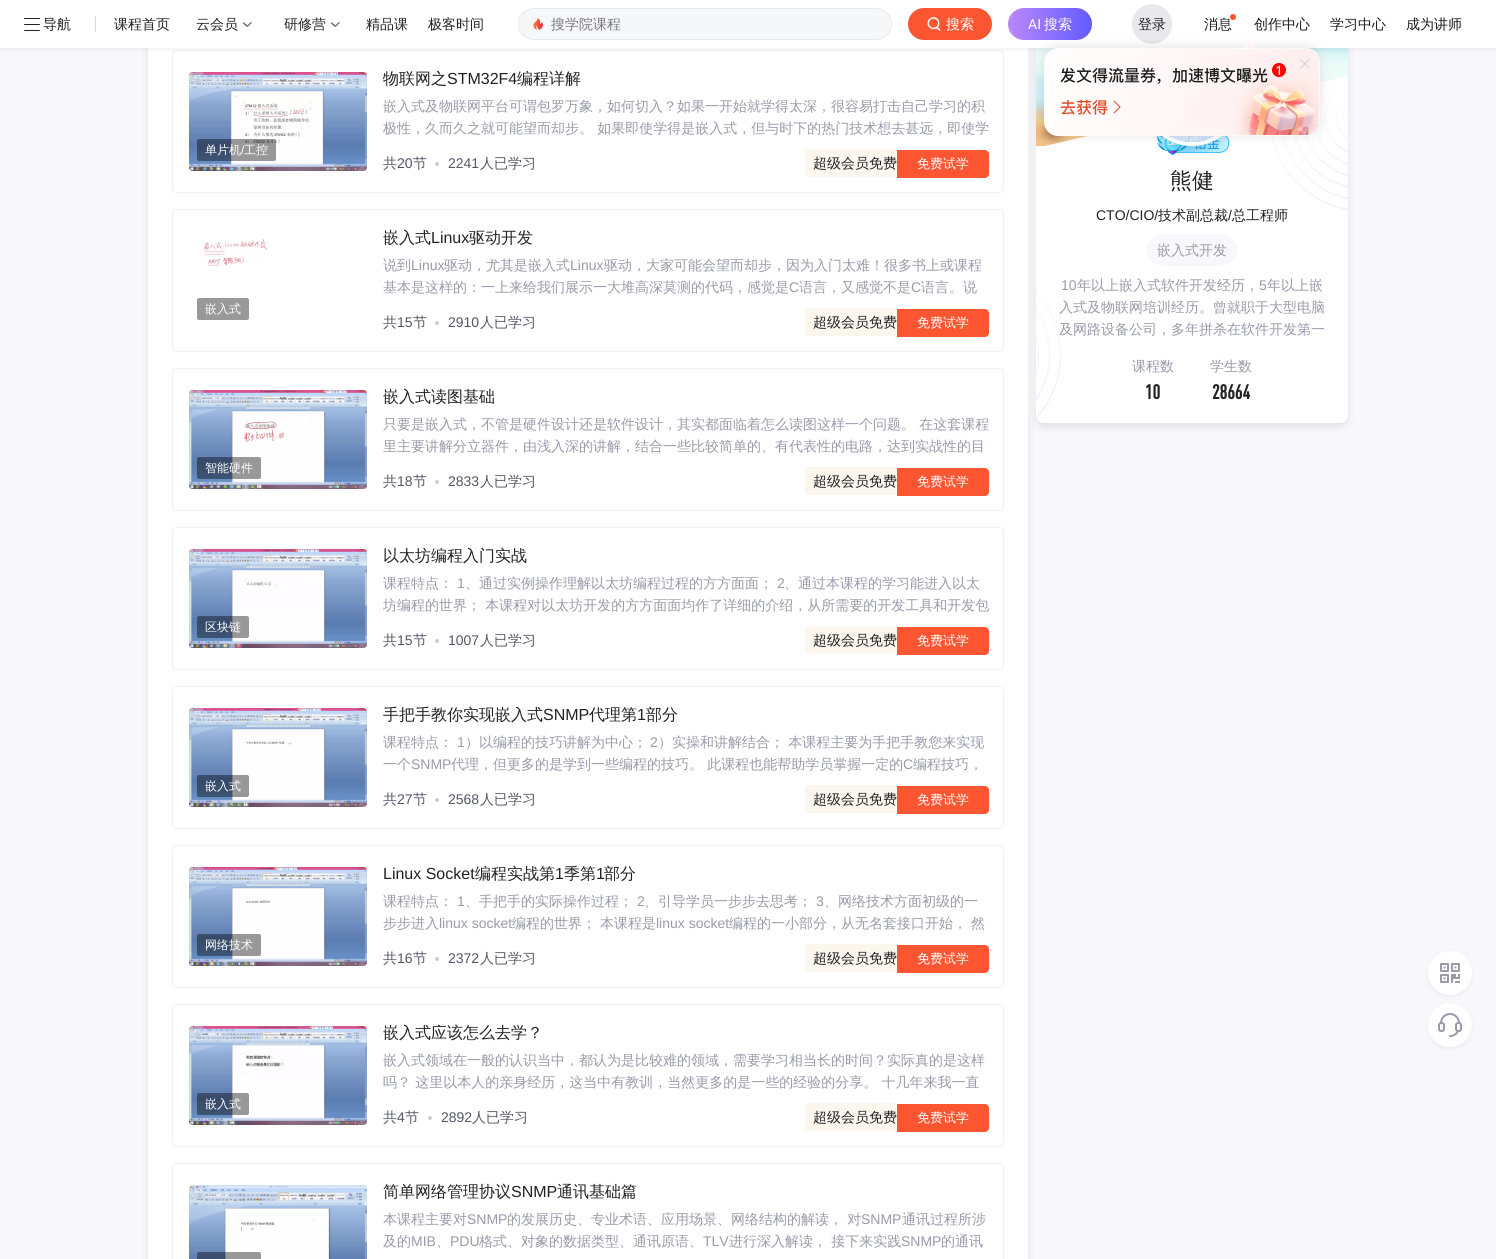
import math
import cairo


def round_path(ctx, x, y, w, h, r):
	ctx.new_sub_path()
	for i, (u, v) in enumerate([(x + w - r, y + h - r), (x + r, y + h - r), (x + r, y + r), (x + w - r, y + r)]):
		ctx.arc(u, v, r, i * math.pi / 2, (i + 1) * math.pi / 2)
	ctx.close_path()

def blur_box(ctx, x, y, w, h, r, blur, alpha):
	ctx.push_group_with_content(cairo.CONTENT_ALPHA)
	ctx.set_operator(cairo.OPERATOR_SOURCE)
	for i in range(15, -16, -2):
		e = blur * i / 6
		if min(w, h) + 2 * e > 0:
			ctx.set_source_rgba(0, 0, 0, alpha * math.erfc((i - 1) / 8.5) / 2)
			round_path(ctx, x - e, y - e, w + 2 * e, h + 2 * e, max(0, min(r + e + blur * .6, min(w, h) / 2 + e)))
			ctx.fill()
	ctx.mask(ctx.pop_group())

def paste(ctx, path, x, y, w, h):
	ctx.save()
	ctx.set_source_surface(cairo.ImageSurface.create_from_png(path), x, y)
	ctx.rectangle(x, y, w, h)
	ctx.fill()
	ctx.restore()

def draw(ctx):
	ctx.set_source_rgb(0.969, 0.969, 0.988)
	ctx.paint()
	ctx.set_source_rgb(0.027, 0.067, 0.106)
	blur_box(ctx, 148, -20, 880, 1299, 8, 4, 0.1)
	ctx.set_source_rgb(1, 1, 1)
	ctx.rectangle(148, 48, 880, 1211)
	ctx.fill()
	round_path(ctx, 172.5, 50.5, 831, 142, 3.5)
	ctx.set_source_rgb(0.941, 0.941, 0.961)
	ctx.set_line_width(1)
	ctx.stroke()
	ctx.set_source_rgb(0.027, 0.067, 0.106)
	blur_box(ctx, 1036, -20, 312, 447, 8, 4, 0.1)
	ctx.set_source_rgb(1, 1, 1)
	round_path(ctx, 1036, -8, 312, 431, 8)
	ctx.fill()
	paste(ctx, 'media/17.png', 1036, 48, 312, 98)
	paste(ctx, 'media/18.png', 1157, 136, 73, 20)
	ctx.set_source_rgb(0.027, 0.067, 0.106)
	blur_box(ctx, 1142, 50, 100, 100, 50, 4, 0.1)
	ctx.arc(1192, 96, 48, 0, 2 * math.pi)
	ctx.set_source_rgb(1, 1, 1)
	ctx.set_line_width(4)
	ctx.stroke()
	ctx.set_source_rgb(0, 0, 0)
	blur_box(ctx, 0, 2, 1496, 48, 0, 2, 0.05)
	ctx.set_source_rgb(1, 1, 1)
	ctx.rectangle(0, 0, 1496, 48)
	ctx.fill()
	paste(ctx, 'media/1.png', 24, 18, 16, 13)
	ctx.select_font_face('WenQuanYi Zen Hei Medium')
	ctx.set_font_size(14)
	ctx.set_source_rgb(0.102, 0.102, 0.102)
	ctx.move_to(43, 29)
	ctx.show_text('导航')
	ctx.set_source_rgb(0.847, 0.847, 0.847)
	round_path(ctx, 95, 16, 1, 16, 0.5)
	ctx.fill()
	ctx.set_source_rgb(0.133, 0.133, 0.149)
	ctx.move_to(114, 29)
	ctx.show_text('课程首页')
	ctx.move_to(196, 29)
	ctx.show_text('云会员')
	paste(ctx, 'media/2.png', 242, 22, 10, 5)
	ctx.move_to(284, 29)
	ctx.show_text('研修营')
	paste(ctx, 'media/2.png', 330, 22, 10, 5)
	ctx.move_to(366, 29)
	ctx.show_text('精品课')
	ctx.move_to(428, 29)
	ctx.show_text('极客时间')
	ctx.set_source_rgb(0.961, 0.965, 0.969)
	round_path(ctx, 518.5, 8.5, 373, 31, 15.5)
	ctx.fill_preserve()
	ctx.set_source_rgb(0.91, 0.91, 0.929)
	ctx.set_line_width(1)
	ctx.stroke()
	paste(ctx, 'media/3.png', 533, 18, 10, 12)
	ctx.set_source_rgb(0.467, 0.471, 0.533)
	ctx.move_to(551, 29)
	ctx.show_text('搜学院课程')
	ctx.set_source_rgb(0.988, 0.333, 0.192)
	round_path(ctx, 908, 8, 84, 32, 16)
	ctx.fill()
	paste(ctx, 'media/4.png', 927, 17, 14, 15)
	ctx.set_source_rgb(1, 1, 1)
	ctx.move_to(946, 29)
	ctx.show_text('搜索')
	gradient = cairo.LinearGradient(1008, 24, 1092, 24)
	gradient.add_color_stop_rgba(0, 0.729, 0.533, 0.98, 1)
	gradient.add_color_stop_rgba(1, 0.388, 0.357, 1, 1)
	ctx.set_source(gradient)
	round_path(ctx, 1008, 8, 84, 32, 16)
	ctx.fill()
	ctx.select_font_face('Roboto')
	ctx.set_source_rgb(1, 1, 1)
	ctx.move_to(1028, 29)
	ctx.show_text('AI')
	ctx.select_font_face('WenQuanYi Zen Hei Medium')
	ctx.move_to(1044, 29)
	ctx.show_text('搜索')
	ctx.set_source_rgb(0.91, 0.91, 0.929)
	ctx.new_path()
	ctx.arc(1152, 24, 20, 0, 2 * math.pi)
	ctx.fill()
	ctx.set_source_rgb(0.133, 0.133, 0.149)
	ctx.move_to(1138, 29)
	ctx.show_text('登录')
	ctx.set_source_rgb(0.102, 0.102, 0.102)
	ctx.move_to(1204, 29)
	ctx.show_text('消息')
	ctx.set_source_rgb(0.988, 0.333, 0.192)
	ctx.new_path()
	ctx.arc(1233, 17, 3, 0, 2 * math.pi)
	ctx.fill()
	ctx.set_source_rgb(0.102, 0.102, 0.102)
	for x, y, s in [
		(1254, 29, '创作中心'),
		(1330, 29, '学习中心'),
		(1406, 29, '成为讲师'),
	]:
		ctx.move_to(x, y)
		ctx.show_text(s)
	paste(ctx, 'media/16.png', 1169, 136, 46, 6)
	ctx.select_font_face('Liberation Sans')
	ctx.set_source_rgb(0.133, 0.133, 0.149)
	ctx.move_to(1228, 220)
	ctx.show_text('/')
	ctx.select_font_face('WenQuanYi Zen Hei Medium')
	ctx.move_to(1232, 220)
	ctx.show_text('总工程师')
	paste(ctx, 'media/19.png', 1272, 92, 76, 118)
	ctx.set_source_rgb(0.404, 0.404, 0.404)
	blur_box(ctx, 1044, 47, 276, 88, 14, 5.5, 0.19)
	paste(ctx, 'media/6.png', 1044, 48, 276, 88)
	paste(ctx, 'media/5.png', 1244, 42, 11, 7)
	paste(ctx, 'media/7.png', 1300, 59, 10, 10)
	paste(ctx, 'media/8.png', 189, 72, 178, 99)
	ctx.set_source_rgba(0, 0, 0, 0.4)
	round_path(ctx, 197, 139, 79, 22, 2)
	ctx.fill()
	ctx.set_font_size(12)
	ctx.set_source_rgb(1, 1, 1)
	ctx.move_to(205, 154)
	ctx.show_text('单片机')
	ctx.select_font_face('Liberation Sans')
	ctx.move_to(241, 154)
	ctx.show_text('/')
	ctx.select_font_face('WenQuanYi Zen Hei Medium')
	ctx.move_to(244, 154)
	ctx.show_text('工控')
	ctx.set_font_size(16)
	ctx.set_source_rgb(0.133, 0.133, 0.149)
	ctx.move_to(383, 84)
	ctx.show_text('物联网之')
	ctx.select_font_face('Liberation Sans')
	ctx.move_to(447, 84)
	ctx.show_text('STM32F4')
	ctx.select_font_face('WenQuanYi Zen Hei Medium')
	ctx.move_to(517, 84)
	ctx.show_text('编程详解')
	ctx.set_font_size(14)
	ctx.set_source_rgb(0.6, 0.604, 0.667)
	ctx.move_to(383, 111)
	ctx.show_text('嵌入式及物联网平台可谓包罗万象，如何切入？如果一开始就学得太深，很容易打击自己学习的积')
	ctx.move_to(383, 133)
	ctx.show_text('极性，久而久之就可能望而却步。 如果即使学得是嵌入式，但与时下的热门技术想去甚远，即使学')
	ctx.set_source_rgb(0.333, 0.337, 0.4)
	ctx.move_to(383, 168)
	ctx.show_text('共')
	ctx.select_font_face('Liberation Sans')
	ctx.move_to(397, 168)
	ctx.show_text('20')
	ctx.select_font_face('WenQuanYi Zen Hei Medium')
	ctx.move_to(413, 168)
	ctx.show_text('节')
	ctx.set_source_rgb(0.8, 0.8, 0.847)
	ctx.new_path()
	ctx.arc(437, 164, 2, 0, 2 * math.pi)
	ctx.fill()
	ctx.select_font_face('Liberation Sans')
	ctx.set_source_rgb(0.333, 0.337, 0.4)
	ctx.move_to(448, 168)
	ctx.show_text('2241')
	ctx.select_font_face('WenQuanYi Zen Hei Medium')
	ctx.move_to(480, 168)
	ctx.show_text('人已学习')
	ctx.set_source_rgb(0.984, 0.961, 0.933)
	ctx.new_path()
	ctx.move_to(809, 149)
	ctx.line_to(897, 149)
	ctx.line_to(897, 177)
	ctx.line_to(809, 177)
	ctx.curve_to(807, 177, 805, 175, 805, 173)
	ctx.line_to(805, 153)
	ctx.curve_to(805, 151, 807, 149, 809, 149)
	ctx.close_path()
	ctx.fill()
	ctx.set_source_rgb(0.133, 0.133, 0.149)
	ctx.move_to(813, 168)
	ctx.show_text('超级会员免费')
	ctx.set_source_rgb(0.988, 0.333, 0.192)
	ctx.new_path()
	ctx.move_to(897, 150)
	ctx.line_to(985, 150)
	ctx.curve_to(987, 150, 989, 152, 989, 154)
	ctx.line_to(989, 174)
	ctx.curve_to(989, 176, 987, 178, 985, 178)
	ctx.line_to(897, 178)
	ctx.close_path()
	ctx.fill()
	ctx.set_font_size(13)
	ctx.set_source_rgb(1, 1, 1)
	ctx.move_to(917, 168)
	ctx.show_text('免费试学')
	round_path(ctx, 172.5, 209.5, 831, 142, 3.5)
	ctx.set_source_rgb(0.941, 0.941, 0.961)
	ctx.stroke()
	paste(ctx, 'media/9.png', 204, 239, 63, 27)
	ctx.set_source_rgb(0.6, 0.6, 0.6)
	round_path(ctx, 197, 298, 52, 22, 2)
	ctx.fill()
	ctx.set_font_size(12)
	ctx.set_source_rgb(1, 1, 1)
	ctx.move_to(205, 313)
	ctx.show_text('嵌入式')
	ctx.set_font_size(16)
	ctx.set_source_rgb(0.133, 0.133, 0.149)
	ctx.move_to(383, 243)
	ctx.show_text('嵌入式')
	ctx.select_font_face('Liberation Sans')
	ctx.move_to(431, 243)
	ctx.show_text('Linux')
	ctx.select_font_face('WenQuanYi Zen Hei Medium')
	ctx.move_to(469, 243)
	ctx.show_text('驱动开发')
	ctx.set_font_size(14)
	ctx.set_source_rgb(0.6, 0.604, 0.667)
	ctx.move_to(383, 270)
	ctx.show_text('说到')
	ctx.select_font_face('Liberation Sans')
	ctx.move_to(411, 270)
	ctx.show_text('Linux')
	ctx.select_font_face('WenQuanYi Zen Hei Medium')
	ctx.move_to(444, 270)
	ctx.show_text('驱动，尤其是嵌入式')
	ctx.select_font_face('Liberation Sans')
	ctx.move_to(570, 270)
	ctx.show_text('Linux')
	ctx.select_font_face('WenQuanYi Zen Hei Medium')
	ctx.move_to(604, 270)
	ctx.show_text('驱动，大家可能会望而却步，因为入门太难！很多书上或课程')
	ctx.move_to(383, 292)
	ctx.show_text('基本是这样的：一上来给我们展示一大堆高深莫测的代码，感觉是')
	ctx.select_font_face('Liberation Sans')
	ctx.move_to(789, 292)
	ctx.show_text('C')
	ctx.select_font_face('WenQuanYi Zen Hei Medium')
	ctx.move_to(799, 292)
	ctx.show_text('语言，又感觉不是')
	ctx.select_font_face('Liberation Sans')
	ctx.move_to(911, 292)
	ctx.show_text('C')
	ctx.select_font_face('WenQuanYi Zen Hei Medium')
	ctx.move_to(921, 292)
	ctx.show_text('语言。说')
	ctx.set_source_rgb(0.333, 0.337, 0.4)
	ctx.move_to(383, 327)
	ctx.show_text('共')
	ctx.select_font_face('Liberation Sans')
	ctx.move_to(397, 327)
	ctx.show_text('15')
	ctx.select_font_face('WenQuanYi Zen Hei Medium')
	ctx.move_to(413, 327)
	ctx.show_text('节')
	ctx.set_source_rgb(0.8, 0.8, 0.847)
	ctx.new_path()
	ctx.arc(437, 323, 2, 0, 2 * math.pi)
	ctx.fill()
	ctx.select_font_face('Liberation Sans')
	ctx.set_source_rgb(0.333, 0.337, 0.4)
	ctx.move_to(448, 327)
	ctx.show_text('2910')
	ctx.select_font_face('WenQuanYi Zen Hei Medium')
	ctx.move_to(480, 327)
	ctx.show_text('人已学习')
	ctx.set_source_rgb(0.984, 0.961, 0.933)
	ctx.new_path()
	ctx.move_to(809, 308)
	ctx.line_to(897, 308)
	ctx.line_to(897, 336)
	ctx.line_to(809, 336)
	ctx.curve_to(807, 336, 805, 334, 805, 332)
	ctx.line_to(805, 312)
	ctx.curve_to(805, 310, 807, 308, 809, 308)
	ctx.close_path()
	ctx.fill()
	ctx.set_source_rgb(0.133, 0.133, 0.149)
	ctx.move_to(813, 327)
	ctx.show_text('超级会员免费')
	ctx.set_source_rgb(0.988, 0.333, 0.192)
	ctx.new_path()
	ctx.move_to(897, 309)
	ctx.line_to(985, 309)
	ctx.curve_to(987, 309, 989, 311, 989, 313)
	ctx.line_to(989, 333)
	ctx.curve_to(989, 335, 987, 337, 985, 337)
	ctx.line_to(897, 337)
	ctx.close_path()
	ctx.fill()
	ctx.set_font_size(13)
	ctx.set_source_rgb(1, 1, 1)
	ctx.move_to(917, 327)
	ctx.show_text('免费试学')
	round_path(ctx, 172.5, 368.5, 831, 142, 3.5)
	ctx.set_source_rgb(0.941, 0.941, 0.961)
	ctx.stroke()
	paste(ctx, 'media/10.png', 189, 390, 178, 99)
	ctx.set_source_rgba(0, 0, 0, 0.4)
	round_path(ctx, 197, 457, 64, 22, 2)
	ctx.fill()
	ctx.set_font_size(12)
	ctx.set_source_rgb(1, 1, 1)
	ctx.move_to(205, 472)
	ctx.show_text('智能硬件')
	ctx.set_font_size(16)
	ctx.set_source_rgb(0.133, 0.133, 0.149)
	ctx.move_to(383, 402)
	ctx.show_text('嵌入式读图基础')
	ctx.set_font_size(14)
	ctx.set_source_rgb(0.6, 0.604, 0.667)
	ctx.move_to(383, 429)
	ctx.show_text('只要是嵌入式，不管是硬件设计还是软件设计，其实都面临着怎么读图这样一个问题。 在这套课程')
	ctx.move_to(383, 451)
	ctx.show_text('里主要讲解分立器件，由浅入深的讲解，结合一些比较简单的、有代表性的电路，达到实战性的目')
	ctx.set_source_rgb(0.333, 0.337, 0.4)
	ctx.move_to(383, 486)
	ctx.show_text('共')
	ctx.select_font_face('Liberation Sans')
	ctx.move_to(397, 486)
	ctx.show_text('18')
	ctx.select_font_face('WenQuanYi Zen Hei Medium')
	ctx.move_to(413, 486)
	ctx.show_text('节')
	ctx.set_source_rgb(0.8, 0.8, 0.847)
	ctx.new_path()
	ctx.arc(437, 482, 2, 0, 2 * math.pi)
	ctx.fill()
	ctx.select_font_face('Liberation Sans')
	ctx.set_source_rgb(0.333, 0.337, 0.4)
	ctx.move_to(448, 486)
	ctx.show_text('2833')
	ctx.select_font_face('WenQuanYi Zen Hei Medium')
	ctx.move_to(480, 486)
	ctx.show_text('人已学习')
	ctx.set_source_rgb(0.984, 0.961, 0.933)
	ctx.new_path()
	ctx.move_to(809, 467)
	ctx.line_to(897, 467)
	ctx.line_to(897, 495)
	ctx.line_to(809, 495)
	ctx.curve_to(807, 495, 805, 493, 805, 491)
	ctx.line_to(805, 471)
	ctx.curve_to(805, 469, 807, 467, 809, 467)
	ctx.close_path()
	ctx.fill()
	ctx.set_source_rgb(0.133, 0.133, 0.149)
	ctx.move_to(813, 486)
	ctx.show_text('超级会员免费')
	ctx.set_source_rgb(0.988, 0.333, 0.192)
	ctx.new_path()
	ctx.move_to(897, 468)
	ctx.line_to(985, 468)
	ctx.curve_to(987, 468, 989, 470, 989, 472)
	ctx.line_to(989, 492)
	ctx.curve_to(989, 494, 987, 496, 985, 496)
	ctx.line_to(897, 496)
	ctx.close_path()
	ctx.fill()
	ctx.set_font_size(13)
	ctx.set_source_rgb(1, 1, 1)
	ctx.move_to(917, 486)
	ctx.show_text('免费试学')
	round_path(ctx, 172.5, 527.5, 831, 142, 3.5)
	ctx.set_source_rgb(0.941, 0.941, 0.961)
	ctx.stroke()
	paste(ctx, 'media/11.png', 189, 549, 178, 99)
	ctx.set_source_rgba(0, 0, 0, 0.4)
	round_path(ctx, 197, 616, 52, 22, 2)
	ctx.fill()
	ctx.set_font_size(12)
	ctx.set_source_rgb(1, 1, 1)
	ctx.move_to(205, 631)
	ctx.show_text('区块链')
	ctx.set_font_size(16)
	ctx.set_source_rgb(0.133, 0.133, 0.149)
	ctx.move_to(383, 561)
	ctx.show_text('以太坊编程入门实战')
	ctx.set_font_size(14)
	ctx.set_source_rgb(0.6, 0.604, 0.667)
	ctx.move_to(383, 588)
	ctx.show_text('课程特点：')
	ctx.select_font_face('Liberation Sans')
	ctx.move_to(457, 588)
	ctx.show_text('1')
	ctx.select_font_face('WenQuanYi Zen Hei Medium')
	ctx.move_to(465, 588)
	ctx.show_text('、通过实例操作理解以太坊编程过程的方方面面；')
	ctx.select_font_face('Liberation Sans')
	ctx.move_to(777, 588)
	ctx.show_text('2')
	ctx.select_font_face('WenQuanYi Zen Hei Medium')
	ctx.move_to(784, 588)
	ctx.show_text('、通过本课程的学习能进入以太')
	ctx.move_to(383, 610)
	ctx.show_text('坊编程的世界； 本课程对以太坊开发的方方面面均作了详细的介绍，从所需要的开发工具和开发包')
	ctx.set_source_rgb(0.333, 0.337, 0.4)
	ctx.move_to(383, 645)
	ctx.show_text('共')
	ctx.select_font_face('Liberation Sans')
	ctx.move_to(397, 645)
	ctx.show_text('15')
	ctx.select_font_face('WenQuanYi Zen Hei Medium')
	ctx.move_to(413, 645)
	ctx.show_text('节')
	ctx.set_source_rgb(0.8, 0.8, 0.847)
	ctx.new_path()
	ctx.arc(437, 641, 2, 0, 2 * math.pi)
	ctx.fill()
	ctx.select_font_face('Liberation Sans')
	ctx.set_source_rgb(0.333, 0.337, 0.4)
	ctx.move_to(448, 645)
	ctx.show_text('1007')
	ctx.select_font_face('WenQuanYi Zen Hei Medium')
	ctx.move_to(480, 645)
	ctx.show_text('人已学习')
	ctx.set_source_rgb(0.984, 0.961, 0.933)
	ctx.new_path()
	ctx.move_to(809, 626)
	ctx.line_to(897, 626)
	ctx.line_to(897, 654)
	ctx.line_to(809, 654)
	ctx.curve_to(807, 654, 805, 652, 805, 650)
	ctx.line_to(805, 630)
	ctx.curve_to(805, 628, 807, 626, 809, 626)
	ctx.close_path()
	ctx.fill()
	ctx.set_source_rgb(0.133, 0.133, 0.149)
	ctx.move_to(813, 645)
	ctx.show_text('超级会员免费')
	ctx.set_source_rgb(0.988, 0.333, 0.192)
	ctx.new_path()
	ctx.move_to(897, 627)
	ctx.line_to(985, 627)
	ctx.curve_to(987, 627, 989, 629, 989, 631)
	ctx.line_to(989, 651)
	ctx.curve_to(989, 653, 987, 655, 985, 655)
	ctx.line_to(897, 655)
	ctx.close_path()
	ctx.fill()
	ctx.set_font_size(13)
	ctx.set_source_rgb(1, 1, 1)
	ctx.move_to(917, 645)
	ctx.show_text('免费试学')
	round_path(ctx, 172.5, 686.5, 831, 142, 3.5)
	ctx.set_source_rgb(0.941, 0.941, 0.961)
	ctx.stroke()
	paste(ctx, 'media/12.png', 189, 708, 178, 99)
	ctx.set_source_rgba(0, 0, 0, 0.4)
	round_path(ctx, 197, 775, 52, 22, 2)
	ctx.fill()
	ctx.set_font_size(12)
	ctx.set_source_rgb(1, 1, 1)
	ctx.move_to(205, 790)
	ctx.show_text('嵌入式')
	ctx.set_font_size(16)
	ctx.set_source_rgb(0.133, 0.133, 0.149)
	ctx.move_to(383, 720)
	ctx.show_text('手把手教你实现嵌入式')
	ctx.select_font_face('Liberation Sans')
	ctx.move_to(543, 720)
	ctx.show_text('SNMP')
	ctx.select_font_face('WenQuanYi Zen Hei Medium')
	ctx.move_to(589, 720)
	ctx.show_text('代理第')
	ctx.select_font_face('Liberation Sans')
	ctx.move_to(637, 720)
	ctx.show_text('1')
	ctx.select_font_face('WenQuanYi Zen Hei Medium')
	ctx.move_to(646, 720)
	ctx.show_text('部分')
	ctx.set_font_size(14)
	ctx.set_source_rgb(0.6, 0.604, 0.667)
	ctx.move_to(383, 747)
	ctx.show_text('课程特点：')
	ctx.select_font_face('Liberation Sans')
	ctx.move_to(457, 747)
	ctx.show_text('1')
	ctx.select_font_face('WenQuanYi Zen Hei Medium')
	ctx.move_to(465, 747)
	ctx.show_text('）以编程的技巧讲解为中心；')
	ctx.select_font_face('Liberation Sans')
	ctx.move_to(650, 747)
	ctx.show_text('2')
	ctx.select_font_face('WenQuanYi Zen Hei Medium')
	ctx.move_to(658, 747)
	ctx.show_text('）实操和讲解结合； 本课程主要为手把手教您来实现')
	ctx.move_to(383, 769)
	ctx.show_text('一个')
	ctx.select_font_face('Liberation Sans')
	ctx.move_to(411, 769)
	ctx.show_text('SNMP')
	ctx.select_font_face('WenQuanYi Zen Hei Medium')
	ctx.move_to(451, 769)
	ctx.show_text('代理，但更多的是学到一些编程的技巧。 此课程也能帮助学员掌握一定的')
	ctx.select_font_face('Liberation Sans')
	ctx.move_to(903, 769)
	ctx.show_text('C')
	ctx.select_font_face('WenQuanYi Zen Hei Medium')
	ctx.move_to(913, 769)
	ctx.show_text('编程技巧，')
	ctx.set_source_rgb(0.333, 0.337, 0.4)
	ctx.move_to(383, 804)
	ctx.show_text('共')
	ctx.select_font_face('Liberation Sans')
	ctx.move_to(397, 804)
	ctx.show_text('27')
	ctx.select_font_face('WenQuanYi Zen Hei Medium')
	ctx.move_to(413, 804)
	ctx.show_text('节')
	ctx.set_source_rgb(0.8, 0.8, 0.847)
	ctx.new_path()
	ctx.arc(437, 800, 2, 0, 2 * math.pi)
	ctx.fill()
	ctx.select_font_face('Liberation Sans')
	ctx.set_source_rgb(0.333, 0.337, 0.4)
	ctx.move_to(448, 804)
	ctx.show_text('2568')
	ctx.select_font_face('WenQuanYi Zen Hei Medium')
	ctx.move_to(480, 804)
	ctx.show_text('人已学习')
	ctx.set_source_rgb(0.984, 0.961, 0.933)
	ctx.new_path()
	ctx.move_to(809, 785)
	ctx.line_to(897, 785)
	ctx.line_to(897, 813)
	ctx.line_to(809, 813)
	ctx.curve_to(807, 813, 805, 811, 805, 809)
	ctx.line_to(805, 789)
	ctx.curve_to(805, 787, 807, 785, 809, 785)
	ctx.close_path()
	ctx.fill()
	ctx.set_source_rgb(0.133, 0.133, 0.149)
	ctx.move_to(813, 804)
	ctx.show_text('超级会员免费')
	ctx.set_source_rgb(0.988, 0.333, 0.192)
	ctx.new_path()
	ctx.move_to(897, 786)
	ctx.line_to(985, 786)
	ctx.curve_to(987, 786, 989, 788, 989, 790)
	ctx.line_to(989, 810)
	ctx.curve_to(989, 812, 987, 814, 985, 814)
	ctx.line_to(897, 814)
	ctx.close_path()
	ctx.fill()
	ctx.set_font_size(13)
	ctx.set_source_rgb(1, 1, 1)
	ctx.move_to(917, 804)
	ctx.show_text('免费试学')
	round_path(ctx, 172.5, 845.5, 831, 142, 3.5)
	ctx.set_source_rgb(0.941, 0.941, 0.961)
	ctx.stroke()
	paste(ctx, 'media/13.png', 189, 867, 178, 99)
	ctx.set_source_rgba(0, 0, 0, 0.4)
	round_path(ctx, 197, 934, 64, 22, 2)
	ctx.fill()
	ctx.set_font_size(12)
	ctx.set_source_rgb(1, 1, 1)
	ctx.move_to(205, 949)
	ctx.show_text('网络技术')
	ctx.select_font_face('Liberation Sans')
	ctx.set_font_size(16)
	ctx.set_source_rgb(0.133, 0.133, 0.149)
	ctx.move_to(383, 879)
	ctx.show_text('Linux Socket')
	ctx.select_font_face('WenQuanYi Zen Hei Medium')
	ctx.move_to(475, 879)
	ctx.show_text('编程实战第')
	ctx.select_font_face('Liberation Sans')
	ctx.move_to(555, 879)
	ctx.show_text('1')
	ctx.select_font_face('WenQuanYi Zen Hei Medium')
	ctx.move_to(564, 879)
	ctx.show_text('季第')
	ctx.select_font_face('Liberation Sans')
	ctx.move_to(596, 879)
	ctx.show_text('1')
	ctx.select_font_face('WenQuanYi Zen Hei Medium')
	ctx.move_to(604, 879)
	ctx.show_text('部分')
	ctx.set_font_size(14)
	ctx.set_source_rgb(0.6, 0.604, 0.667)
	ctx.move_to(383, 906)
	ctx.show_text('课程特点：')
	ctx.select_font_face('Liberation Sans')
	ctx.move_to(457, 906)
	ctx.show_text('1')
	ctx.select_font_face('WenQuanYi Zen Hei Medium')
	ctx.move_to(465, 906)
	ctx.show_text('、手把手的实际操作过程；')
	ctx.select_font_face('Liberation Sans')
	ctx.move_to(637, 906)
	ctx.show_text('2')
	ctx.select_font_face('WenQuanYi Zen Hei Medium')
	ctx.move_to(644, 906)
	ctx.show_text('、引导学员一步步去思考；')
	ctx.select_font_face('Liberation Sans')
	ctx.move_to(816, 906)
	ctx.show_text('3')
	ctx.select_font_face('WenQuanYi Zen Hei Medium')
	ctx.move_to(824, 906)
	ctx.show_text('、网络技术方面初级的一')
	ctx.move_to(383, 928)
	ctx.show_text('步步进入')
	ctx.select_font_face('Liberation Sans')
	ctx.move_to(439, 928)
	ctx.show_text('linux socket')
	ctx.select_font_face('WenQuanYi Zen Hei Medium')
	ctx.move_to(512, 928)
	ctx.show_text('编程的世界；')
	ctx.move_to(600, 928)
	ctx.show_text('本课程是')
	ctx.select_font_face('Liberation Sans')
	ctx.move_to(656, 928)
	ctx.show_text('linux socket')
	ctx.select_font_face('WenQuanYi Zen Hei Medium')
	ctx.move_to(729, 928)
	ctx.show_text('编程的一小部分，从无名套接口开始，')
	ctx.move_to(971, 928)
	ctx.show_text('然')
	ctx.set_source_rgb(0.333, 0.337, 0.4)
	ctx.move_to(383, 963)
	ctx.show_text('共')
	ctx.select_font_face('Liberation Sans')
	ctx.move_to(397, 963)
	ctx.show_text('16')
	ctx.select_font_face('WenQuanYi Zen Hei Medium')
	ctx.move_to(413, 963)
	ctx.show_text('节')
	ctx.set_source_rgb(0.8, 0.8, 0.847)
	ctx.new_path()
	ctx.arc(437, 959, 2, 0, 2 * math.pi)
	ctx.fill()
	ctx.select_font_face('Liberation Sans')
	ctx.set_source_rgb(0.333, 0.337, 0.4)
	ctx.move_to(448, 963)
	ctx.show_text('2372')
	ctx.select_font_face('WenQuanYi Zen Hei Medium')
	ctx.move_to(480, 963)
	ctx.show_text('人已学习')
	ctx.set_source_rgb(0.984, 0.961, 0.933)
	ctx.new_path()
	ctx.move_to(809, 944)
	ctx.line_to(897, 944)
	ctx.line_to(897, 972)
	ctx.line_to(809, 972)
	ctx.curve_to(807, 972, 805, 970, 805, 968)
	ctx.line_to(805, 948)
	ctx.curve_to(805, 946, 807, 944, 809, 944)
	ctx.close_path()
	ctx.fill()
	ctx.set_source_rgb(0.133, 0.133, 0.149)
	ctx.move_to(813, 963)
	ctx.show_text('超级会员免费')
	ctx.set_source_rgb(0.988, 0.333, 0.192)
	ctx.new_path()
	ctx.move_to(897, 945)
	ctx.line_to(985, 945)
	ctx.curve_to(987, 945, 989, 947, 989, 949)
	ctx.line_to(989, 969)
	ctx.curve_to(989, 971, 987, 973, 985, 973)
	ctx.line_to(897, 973)
	ctx.close_path()
	ctx.fill()
	ctx.set_font_size(13)
	ctx.set_source_rgb(1, 1, 1)
	ctx.move_to(917, 963)
	ctx.show_text('免费试学')
	round_path(ctx, 172.5, 1004.5, 831, 142, 3.5)
	ctx.set_source_rgb(0.941, 0.941, 0.961)
	ctx.stroke()
	paste(ctx, 'media/14.png', 189, 1026, 178, 99)
	ctx.set_source_rgba(0, 0, 0, 0.4)
	round_path(ctx, 197, 1093, 52, 22, 2)
	ctx.fill()
	ctx.set_font_size(12)
	ctx.set_source_rgb(1, 1, 1)
	ctx.move_to(205, 1108)
	ctx.show_text('嵌入式')
	ctx.set_font_size(16)
	ctx.set_source_rgb(0.133, 0.133, 0.149)
	ctx.move_to(383, 1038)
	ctx.show_text('嵌入式应该怎么去学？')
	ctx.set_font_size(14)
	ctx.set_source_rgb(0.6, 0.604, 0.667)
	ctx.move_to(383, 1065)
	ctx.show_text('嵌入式领域在一般的认识当中，都认为是比较难的领域，需要学习相当长的时间？实际真的是这样')
	ctx.move_to(383, 1087)
	ctx.show_text('吗？ 这里以本人的亲身经历，这当中有教训，当然更多的是一些的经验的分享。 十几年来我一直')
	ctx.set_source_rgb(0.333, 0.337, 0.4)
	ctx.move_to(383, 1122)
	ctx.show_text('共')
	ctx.select_font_face('Liberation Sans')
	ctx.move_to(397, 1122)
	ctx.show_text('4')
	ctx.select_font_face('WenQuanYi Zen Hei Medium')
	ctx.move_to(405, 1122)
	ctx.show_text('节')
	ctx.set_source_rgb(0.8, 0.8, 0.847)
	ctx.new_path()
	ctx.arc(430, 1118, 2, 0, 2 * math.pi)
	ctx.fill()
	ctx.select_font_face('Liberation Sans')
	ctx.set_source_rgb(0.333, 0.337, 0.4)
	ctx.move_to(441, 1122)
	ctx.show_text('2892')
	ctx.select_font_face('WenQuanYi Zen Hei Medium')
	ctx.move_to(472, 1122)
	ctx.show_text('人已学习')
	ctx.set_source_rgb(0.984, 0.961, 0.933)
	ctx.new_path()
	ctx.move_to(809, 1103)
	ctx.line_to(897, 1103)
	ctx.line_to(897, 1131)
	ctx.line_to(809, 1131)
	ctx.curve_to(807, 1131, 805, 1129, 805, 1127)
	ctx.line_to(805, 1107)
	ctx.curve_to(805, 1105, 807, 1103, 809, 1103)
	ctx.close_path()
	ctx.fill()
	ctx.set_source_rgb(0.133, 0.133, 0.149)
	ctx.move_to(813, 1122)
	ctx.show_text('超级会员免费')
	ctx.set_source_rgb(0.988, 0.333, 0.192)
	ctx.new_path()
	ctx.move_to(897, 1104)
	ctx.line_to(985, 1104)
	ctx.curve_to(987, 1104, 989, 1106, 989, 1108)
	ctx.line_to(989, 1128)
	ctx.curve_to(989, 1130, 987, 1132, 985, 1132)
	ctx.line_to(897, 1132)
	ctx.close_path()
	ctx.fill()
	ctx.set_font_size(13)
	ctx.set_source_rgb(1, 1, 1)
	ctx.move_to(917, 1122)
	ctx.show_text('免费试学')
	round_path(ctx, 172.5, 1163.5, 831, 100, 3.5)
	ctx.set_source_rgb(0.941, 0.941, 0.961)
	ctx.stroke()
	paste(ctx, 'media/15.png', 189, 1185, 178, 74)
	ctx.set_source_rgba(0, 0, 0, 0.4)
	round_path(ctx, 197, 1252, 64, 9, 2)
	ctx.fill()
	ctx.set_font_size(16)
	ctx.set_source_rgb(0.133, 0.133, 0.149)
	ctx.move_to(383, 1197)
	ctx.show_text('简单网络管理协议')
	ctx.select_font_face('Liberation Sans')
	ctx.move_to(511, 1197)
	ctx.show_text('SNMP')
	ctx.select_font_face('WenQuanYi Zen Hei Medium')
	ctx.move_to(557, 1197)
	ctx.show_text('通讯基础篇')
	ctx.set_font_size(14)
	ctx.set_source_rgb(0.6, 0.604, 0.667)
	ctx.move_to(383, 1224)
	ctx.show_text('本课程主要对')
	ctx.select_font_face('Liberation Sans')
	ctx.move_to(467, 1224)
	ctx.show_text('SNMP')
	ctx.select_font_face('WenQuanYi Zen Hei Medium')
	ctx.move_to(507, 1224)
	ctx.show_text('的发展历史、专业术语、应用场景、网络结构的解读， 对')
	ctx.select_font_face('Liberation Sans')
	ctx.move_to(861, 1224)
	ctx.show_text('SNMP')
	ctx.select_font_face('WenQuanYi Zen Hei Medium')
	ctx.move_to(902, 1224)
	ctx.show_text('通讯过程所涉')
	ctx.move_to(383, 1246)
	ctx.show_text('及的')
	ctx.select_font_face('Liberation Sans')
	ctx.move_to(411, 1246)
	ctx.show_text('MIB')
	ctx.select_font_face('WenQuanYi Zen Hei Medium')
	ctx.move_to(436, 1246)
	ctx.show_text('、')
	ctx.select_font_face('Liberation Sans')
	ctx.move_to(450, 1246)
	ctx.show_text('PDU')
	ctx.select_font_face('WenQuanYi Zen Hei Medium')
	ctx.move_to(479, 1246)
	ctx.show_text('格式、对象的数据类型、通讯原语、')
	ctx.select_font_face('Liberation Sans')
	ctx.move_to(703, 1246)
	ctx.show_text('TLV')
	ctx.select_font_face('WenQuanYi Zen Hei Medium')
	ctx.move_to(729, 1246)
	ctx.show_text('进行深入解读， 接下来实践')
	ctx.select_font_face('Liberation Sans')
	ctx.move_to(901, 1246)
	ctx.show_text('SNMP')
	ctx.select_font_face('WenQuanYi Zen Hei Medium')
	ctx.move_to(941, 1246)
	ctx.show_text('的通讯')
	ctx.set_font_size(22)
	ctx.set_source_rgb(0.133, 0.133, 0.149)
	ctx.move_to(1170, 188)
	ctx.show_text('熊健')
	ctx.select_font_face('Liberation Sans')
	ctx.set_font_size(14)
	ctx.move_to(1096, 220)
	ctx.show_text('CTO/CIO/')
	ctx.select_font_face('WenQuanYi Zen Hei Medium')
	ctx.move_to(1158, 220)
	ctx.show_text('技术副总裁')
	ctx.set_source_rgb(0.969, 0.969, 0.988)
	round_path(ctx, 1147, 234, 90, 32, 16)
	ctx.fill()
	ctx.set_source_rgb(0.6, 0.604, 0.667)
	for x, y, s in [
		(1157, 255, '嵌入式开发'),
		(1059, 312, '入式及物联网培训经历。曾就职于大型电脑'),
		(1059, 334, '及网路设备公司，多年拼杀在软件开发第一'),
	]:
		ctx.move_to(x, y)
		ctx.show_text(s)
	paste(ctx, 'media/20.png', 1036, 292, 25, 126)
	ctx.select_font_face('Liberation Sans')
	ctx.move_to(1061, 290)
	ctx.show_text('10')
	ctx.select_font_face('WenQuanYi Zen Hei Medium')
	ctx.move_to(1077, 290)
	ctx.show_text('年以上嵌入式软件开发经历，')
	ctx.select_font_face('Liberation Sans')
	ctx.move_to(1259, 290)
	ctx.show_text('5')
	ctx.select_font_face('WenQuanYi Zen Hei Medium')
	ctx.move_to(1267, 290)
	ctx.show_text('年以上嵌')
	ctx.move_to(1132, 371)
	ctx.show_text('课程数')
	ctx.select_font_face('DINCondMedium', cairo.FONT_SLANT_NORMAL, cairo.FONT_WEIGHT_BOLD)
	ctx.set_font_size(20)
	ctx.set_source_rgb(0.133, 0.133, 0.149)
	ctx.move_to(1145, 399)
	ctx.show_text('10')
	ctx.select_font_face('WenQuanYi Zen Hei Medium')
	ctx.set_font_size(14)
	ctx.set_source_rgb(0.6, 0.604, 0.667)
	ctx.move_to(1210, 371)
	ctx.show_text('学生数')
	ctx.select_font_face('DINCondMedium', cairo.FONT_SLANT_NORMAL, cairo.FONT_WEIGHT_BOLD)
	ctx.set_font_size(20)
	ctx.set_source_rgb(0.133, 0.133, 0.149)
	ctx.move_to(1212, 399)
	ctx.show_text('28664')
	ctx.set_source_rgb(0, 0, 0)
	blur_box(ctx, 1428, 953, 44, 44, 22, 2, 0.05)
	ctx.set_source_rgb(1, 1, 1)
	ctx.arc(1450, 973, 22, 0, 2 * math.pi)
	ctx.fill()
	paste(ctx, 'media/21.png', 1440, 963, 20, 20)
	ctx.set_source_rgb(0, 0, 0)
	blur_box(ctx, 1428, 1005, 44, 44, 22, 2, 0.05)
	ctx.set_source_rgb(1, 1, 1)
	ctx.arc(1450, 1025, 22, 0, 2 * math.pi)
	ctx.fill()
	paste(ctx, 'media/22.png', 1438, 1013, 24, 24)


surface = cairo.ImageSurface(cairo.FORMAT_RGB24, 1496, 1259)
ctx = cairo.Context(surface)
options = cairo.FontOptions()
options.set_hint_metrics(cairo.HINT_METRICS_OFF)
options.set_hint_style(cairo.HINT_STYLE_NONE)
ctx.set_font_options(options)
ctx.set_miter_limit(4)
draw(ctx)
surface.write_to_png('image.png')
